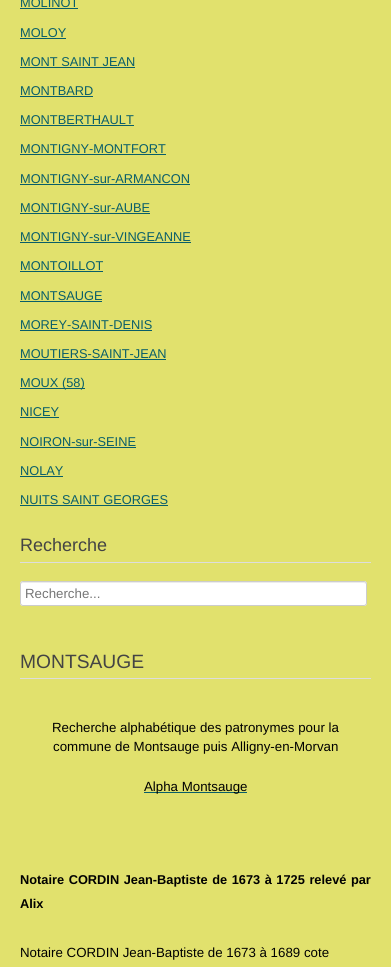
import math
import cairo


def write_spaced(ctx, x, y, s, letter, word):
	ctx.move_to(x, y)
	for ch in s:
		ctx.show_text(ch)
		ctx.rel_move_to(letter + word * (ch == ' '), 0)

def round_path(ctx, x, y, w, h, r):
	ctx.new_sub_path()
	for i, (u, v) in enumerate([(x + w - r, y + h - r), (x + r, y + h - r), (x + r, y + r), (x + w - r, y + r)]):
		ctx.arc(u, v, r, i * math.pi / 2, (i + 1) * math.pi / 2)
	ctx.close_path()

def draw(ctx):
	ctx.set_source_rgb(0.882, 0.882, 0.427)
	ctx.paint()
	ctx.select_font_face('Liberation Sans')
	ctx.set_font_size(12.8)
	ctx.set_source_rgb(0.039, 0.369, 0.412)
	ctx.move_to(20, 7)
	ctx.show_text('MOLINOT')
	ctx.rectangle(20, 8, 58, 1)
	ctx.fill()
	ctx.move_to(20, 37)
	ctx.show_text('MOLOY')
	ctx.rectangle(20, 38, 46, 1)
	ctx.fill()
	ctx.move_to(20, 66)
	ctx.show_text('MONT SAINT JEAN')
	ctx.rectangle(20, 67, 115, 1)
	ctx.fill()
	ctx.move_to(20, 95)
	ctx.show_text('MONTBARD')
	ctx.rectangle(20, 96, 73, 1)
	ctx.fill()
	ctx.move_to(20, 124)
	ctx.show_text('MONTBERTHAULT')
	ctx.rectangle(20, 125, 114, 1)
	ctx.fill()
	ctx.move_to(20, 153)
	ctx.show_text('MONTIGNY-MONTFORT')
	ctx.rectangle(20, 154, 146, 1)
	ctx.fill()
	ctx.move_to(20, 183)
	ctx.show_text('MONTIGNY-sur-ARMANCON')
	ctx.rectangle(20, 184, 170, 1)
	ctx.fill()
	ctx.move_to(20, 212)
	ctx.show_text('MONTIGNY-sur-AUBE')
	ctx.rectangle(20, 213, 130, 1)
	ctx.fill()
	ctx.move_to(20, 241)
	ctx.show_text('MONTIGNY-sur-VINGEANNE')
	ctx.rectangle(20, 242, 171, 1)
	ctx.fill()
	ctx.move_to(20, 270)
	ctx.show_text('MONTOILLOT')
	ctx.rectangle(20, 271, 83, 1)
	ctx.fill()
	ctx.move_to(20, 300)
	ctx.show_text('MONTSAUGE')
	ctx.rectangle(20, 301, 82, 1)
	ctx.fill()
	ctx.move_to(20, 329)
	ctx.show_text('MOREY-SAINT-DENIS')
	ctx.rectangle(20, 330, 132, 1)
	ctx.fill()
	ctx.move_to(20, 358)
	ctx.show_text('MOUTIERS-SAINT-JEAN')
	ctx.rectangle(20, 359, 146, 1)
	ctx.fill()
	ctx.rectangle(20, 388, 65, 1)
	ctx.fill()
	ctx.move_to(20, 387)
	ctx.show_text('MOUX (58)')
	ctx.move_to(20, 416)
	ctx.show_text('NICEY')
	ctx.rectangle(20, 417, 39, 1)
	ctx.fill()
	ctx.move_to(20, 446)
	ctx.show_text('NOIRON-sur-SEINE')
	ctx.rectangle(20, 447, 116, 1)
	ctx.fill()
	ctx.move_to(20, 475)
	ctx.show_text('NOLAY')
	ctx.rectangle(20, 476, 43, 1)
	ctx.fill()
	ctx.move_to(20, 504)
	ctx.show_text('NUITS SAINT GEORGES')
	ctx.rectangle(20, 505, 148, 1)
	ctx.fill()
	ctx.set_source_rgb(0.867, 0.867, 0.867)
	ctx.rectangle(20, 562, 351, 1)
	ctx.fill()
	ctx.set_font_size(18)
	ctx.set_source_rgb(0.267, 0.267, 0.267)
	ctx.move_to(20, 551)
	ctx.show_text('Recherche')
	ctx.set_source_rgb(1, 1, 1)
	round_path(ctx, 20, 581, 347, 25, 3)
	ctx.fill()
	ctx.set_source_rgb(0.925, 0.925, 0.925)
	ctx.new_path()
	ctx.move_to(23, 583)
	ctx.line_to(364, 583)
	ctx.line_to(366, 584)
	ctx.curve_to(366, 583, 365, 582, 364, 582)
	ctx.line_to(23, 582)
	ctx.curve_to(22, 582, 21, 583, 21, 584)
	ctx.curve_to(21, 584, 22, 583, 23, 583)
	ctx.close_path()
	ctx.fill()
	round_path(ctx, 20.5, 581.5, 346, 24, 2.5)
	ctx.set_source_rgb(0.8, 0.8, 0.8)
	ctx.set_line_width(1)
	ctx.stroke()
	ctx.set_font_size(13.3)
	ctx.set_source_rgb(0.459, 0.459, 0.459)
	ctx.move_to(25, 598)
	ctx.show_text('Recherche...')
	ctx.set_source_rgb(0.867, 0.867, 0.867)
	ctx.rectangle(20, 678, 351, 1)
	ctx.fill()
	ctx.set_font_size(19.25)
	ctx.set_source_rgb(0.267, 0.267, 0.267)
	ctx.move_to(20, 668)
	ctx.show_text('MONTSAUGE')
	ctx.set_font_size(13.3)
	ctx.set_source_rgb(0, 0, 0)
	ctx.move_to(52, 732)
	ctx.show_text('Recherche alphabétique des patronymes pour la')
	ctx.move_to(53, 751)
	ctx.show_text('commune de Montsauge puis Alligny-en-Morvan')
	ctx.set_source_rgb(0.039, 0.369, 0.412)
	ctx.rectangle(144, 792, 103, 1)
	ctx.fill()
	ctx.set_source_rgb(0, 0, 0)
	ctx.move_to(144, 791)
	ctx.show_text('Alpha Montsauge')
	ctx.select_font_face('Liberation Sans', cairo.FONT_SLANT_NORMAL, cairo.FONT_WEIGHT_BOLD)
	ctx.set_font_size(12.8)
	write_spaced(ctx, 20, 884, 'Notaire CORDIN Jean-Baptiste de 1673 à 1725 relevé par', 0, 1)
	ctx.move_to(20, 908)
	ctx.show_text('Alix')
	ctx.select_font_face('Liberation Sans')
	ctx.set_font_size(13.3)
	ctx.move_to(20, 957)
	ctx.show_text('Notaire CORDIN Jean-Baptiste de 1673 à 1689 cote')


surface = cairo.ImageSurface(cairo.FORMAT_RGB24, 391, 967)
ctx = cairo.Context(surface)
options = cairo.FontOptions()
options.set_hint_metrics(cairo.HINT_METRICS_OFF)
options.set_hint_style(cairo.HINT_STYLE_NONE)
ctx.set_font_options(options)
ctx.set_miter_limit(4)
draw(ctx)
surface.write_to_png('image.png')
